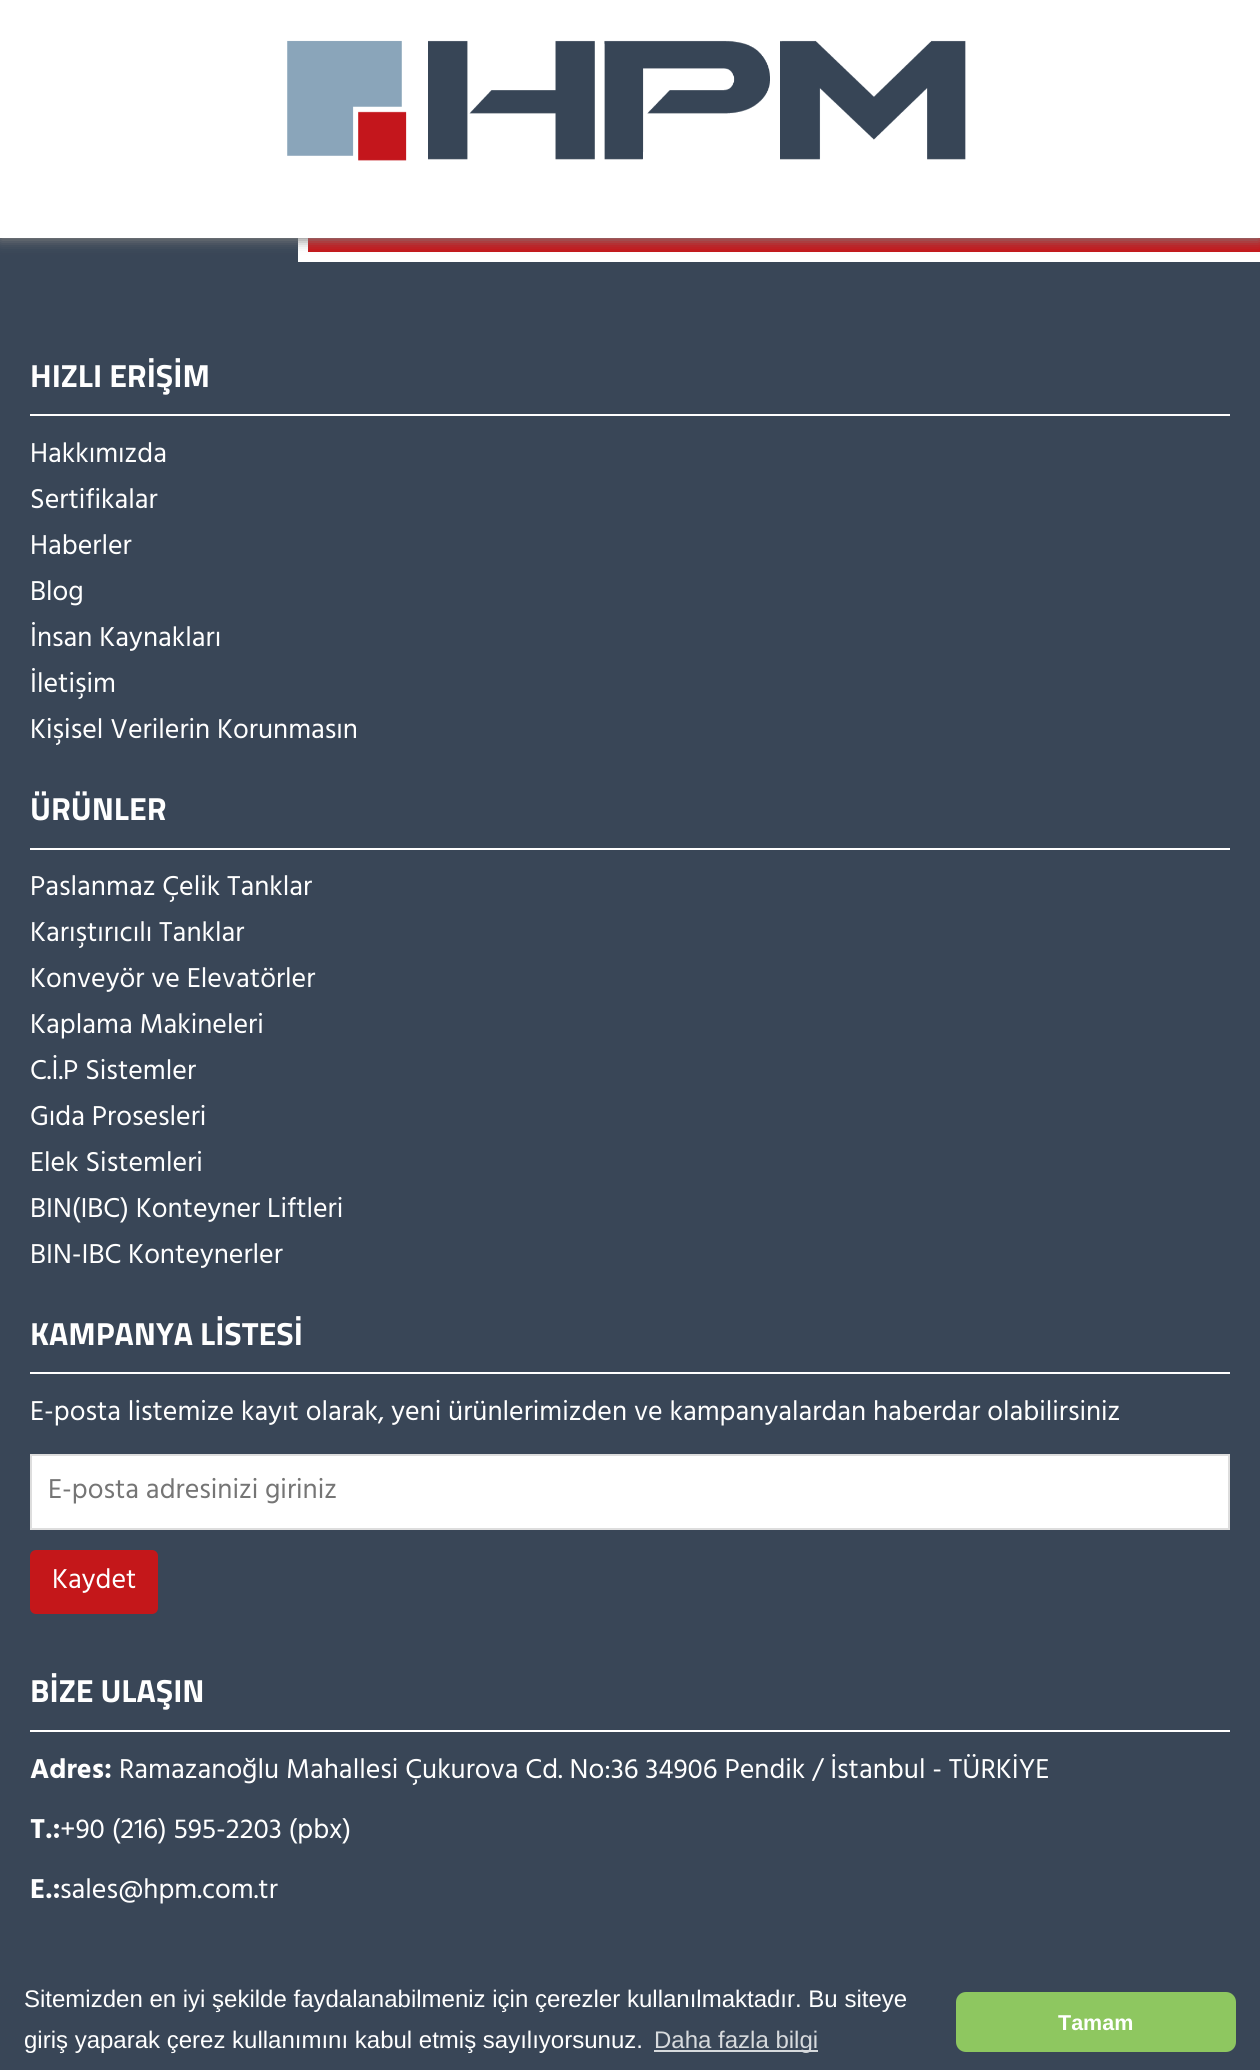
import math
import cairo


def round_path(ctx, x, y, w, h, r):
	ctx.new_sub_path()
	for i, (u, v) in enumerate([(x + w - r, y + h - r), (x + r, y + h - r), (x + r, y + r), (x + w - r, y + r)]):
		ctx.arc(u, v, r, i * math.pi / 2, (i + 1) * math.pi / 2)
	ctx.close_path()

def blur_box(ctx, x, y, w, h, r, blur, alpha):
	ctx.push_group_with_content(cairo.CONTENT_ALPHA)
	ctx.set_operator(cairo.OPERATOR_SOURCE)
	for i in range(15, -16, -2):
		e = blur * i / 6
		if min(w, h) + 2 * e > 0:
			ctx.set_source_rgba(0, 0, 0, alpha * math.erfc((i - 1) / 8.5) / 2)
			round_path(ctx, x - e, y - e, w + 2 * e, h + 2 * e, max(0, min(r + e + blur * .6, min(w, h) / 2 + e)))
			ctx.fill()
	ctx.mask(ctx.pop_group())

def paste(ctx, path, x, y, w, h):
	ctx.save()
	ctx.set_source_surface(cairo.ImageSurface.create_from_png(path), x, y)
	ctx.rectangle(x, y, w, h)
	ctx.fill()
	ctx.restore()

def draw(ctx):
	ctx.set_source_rgb(0.224, 0.275, 0.341)
	ctx.paint()
	ctx.set_source_rgb(0.769, 0.09, 0.106)
	ctx.rectangle(308, 238, 952, 14)
	ctx.fill()
	ctx.rectangle(303, 113, 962, 144)
	ctx.set_source_rgb(1, 1, 1)
	ctx.set_line_width(10)
	ctx.stroke()
	ctx.set_source_rgb(0.502, 0.502, 0.502)
	blur_box(ctx, 0, 2, 1260, 238, 0, 6, 1)
	ctx.set_source_rgb(1, 1, 1)
	ctx.rectangle(0, 0, 1260, 238)
	ctx.fill()
	paste(ctx, 'media/1.png', 287, 40, 679, 121)
	ctx.rectangle(30, 414, 1200, 2)
	ctx.fill()
	ctx.select_font_face('Titillium Web', cairo.FONT_SLANT_NORMAL, cairo.FONT_WEIGHT_BOLD)
	ctx.set_font_size(32)
	ctx.move_to(30, 387)
	ctx.show_text('HIZLI ERİŞİM')
	ctx.select_font_face('Hind')
	ctx.set_font_size(28)
	for x, y, s in [
		(30, 462, 'Hakkımızda'),
		(30, 508, 'Sertifikalar'),
		(30, 554, 'Haberler'),
		(30, 600, 'Blog'),
		(30, 646, 'İnsan Kaynakları'),
		(30, 692, 'İletişim'),
		(30, 738, 'Kişisel Verilerin Korunmasın'),
	]:
		ctx.move_to(x, y)
		ctx.show_text(s)
	ctx.rectangle(30, 848, 1200, 2)
	ctx.fill()
	ctx.select_font_face('Titillium Web', cairo.FONT_SLANT_NORMAL, cairo.FONT_WEIGHT_BOLD)
	ctx.set_font_size(32)
	ctx.move_to(30, 820)
	ctx.show_text('ÜRÜNLER')
	ctx.select_font_face('Hind')
	ctx.set_font_size(28)
	for x, y, s in [
		(30, 895, 'Paslanmaz Çelik Tanklar'),
		(30, 941, 'Karıştırıcılı Tanklar'),
		(30, 987, 'Konveyör ve Elevatörler'),
		(30, 1033, 'Kaplama Makineleri'),
		(30, 1079, 'C.İ.P Sistemler'),
		(30, 1125, 'Gıda Prosesleri'),
		(30, 1171, 'Elek Sistemleri'),
		(30, 1217, 'BIN(IBC) Konteyner Liftleri'),
		(30, 1263, 'BIN-IBC Konteynerler'),
	]:
		ctx.move_to(x, y)
		ctx.show_text(s)
	ctx.rectangle(30, 1372, 1200, 2)
	ctx.fill()
	ctx.select_font_face('Titillium Web', cairo.FONT_SLANT_NORMAL, cairo.FONT_WEIGHT_BOLD)
	ctx.set_font_size(32)
	ctx.move_to(30, 1345)
	ctx.show_text('KAMPANYA LİSTESİ')
	ctx.select_font_face('Hind')
	ctx.set_font_size(28)
	ctx.move_to(30, 1420)
	ctx.show_text('E-posta listemize kayıt olarak, yeni ürünlerimizden ve kampanyalardan haberdar olabilirsiniz')
	ctx.rectangle(31, 1455, 1198, 74)
	ctx.fill_preserve()
	ctx.set_source_rgb(0.867, 0.867, 0.867)
	ctx.set_line_width(2)
	ctx.stroke()
	ctx.set_source_rgb(0.459, 0.459, 0.459)
	ctx.move_to(48, 1498)
	ctx.show_text('E-posta adresinizi giriniz')
	ctx.set_source_rgb(0.769, 0.09, 0.102)
	round_path(ctx, 30, 1550, 128, 64, 6)
	ctx.fill()
	ctx.set_source_rgb(1, 1, 1)
	ctx.move_to(52, 1588)
	ctx.show_text('Kaydet')
	ctx.rectangle(30, 1730, 1200, 2)
	ctx.fill()
	ctx.select_font_face('Titillium Web', cairo.FONT_SLANT_NORMAL, cairo.FONT_WEIGHT_BOLD)
	ctx.set_font_size(32)
	ctx.move_to(30, 1702)
	ctx.show_text('BİZE ULAŞIN')
	ctx.select_font_face('Hind', cairo.FONT_SLANT_NORMAL, cairo.FONT_WEIGHT_BOLD)
	ctx.set_font_size(28)
	ctx.move_to(30, 1778)
	ctx.show_text('Adres:')
	ctx.select_font_face('Hind')
	ctx.move_to(119, 1778)
	ctx.show_text('Ramazanoğlu Mahallesi Çukurova Cd. No:36 34906 Pendik / İstanbul - TÜRKİYE')
	ctx.select_font_face('Hind', cairo.FONT_SLANT_NORMAL, cairo.FONT_WEIGHT_BOLD)
	ctx.move_to(30, 1838)
	ctx.show_text('T.:')
	ctx.select_font_face('Hind')
	ctx.move_to(60, 1838)
	ctx.show_text('+90 (216) 595-2203 (pbx)')
	ctx.select_font_face('Hind', cairo.FONT_SLANT_NORMAL, cairo.FONT_WEIGHT_BOLD)
	ctx.move_to(30, 1898)
	ctx.show_text('E.:')
	ctx.select_font_face('Hind')
	ctx.move_to(60, 1898)
	ctx.show_text('sales@hpm.com.tr')
	ctx.select_font_face('Liberation Sans')
	ctx.set_font_size(24)
	ctx.move_to(24, 2007)
	ctx.show_text('Sitemizden en iyi şekilde faydalanabilmeniz için çerezler kullanılmaktadır. Bu siteye')
	ctx.move_to(24, 2048)
	ctx.show_text('giriş yaparak çerez kullanımını kabul etmiş sayılıyorsunuz.')
	ctx.set_source_rgb(0.843, 0.855, 0.867)
	ctx.rectangle(654, 2050, 164, 2)
	ctx.fill()
	ctx.move_to(654, 2048)
	ctx.show_text('Daha fazla bilgi')
	ctx.set_source_rgb(0.557, 0.78, 0.376)
	round_path(ctx, 956, 1992, 280, 60, 10)
	ctx.fill()
	ctx.select_font_face('Liberation Sans', cairo.FONT_SLANT_NORMAL, cairo.FONT_WEIGHT_BOLD)
	ctx.set_font_size(21.5)
	ctx.set_source_rgb(1, 1, 1)
	ctx.move_to(1058, 2030)
	ctx.show_text('Tamam')


surface = cairo.ImageSurface(cairo.FORMAT_RGB24, 1260, 2070)
ctx = cairo.Context(surface)
options = cairo.FontOptions()
options.set_hint_metrics(cairo.HINT_METRICS_OFF)
options.set_hint_style(cairo.HINT_STYLE_NONE)
ctx.set_font_options(options)
ctx.set_miter_limit(4)
draw(ctx)
surface.write_to_png('image.png')
